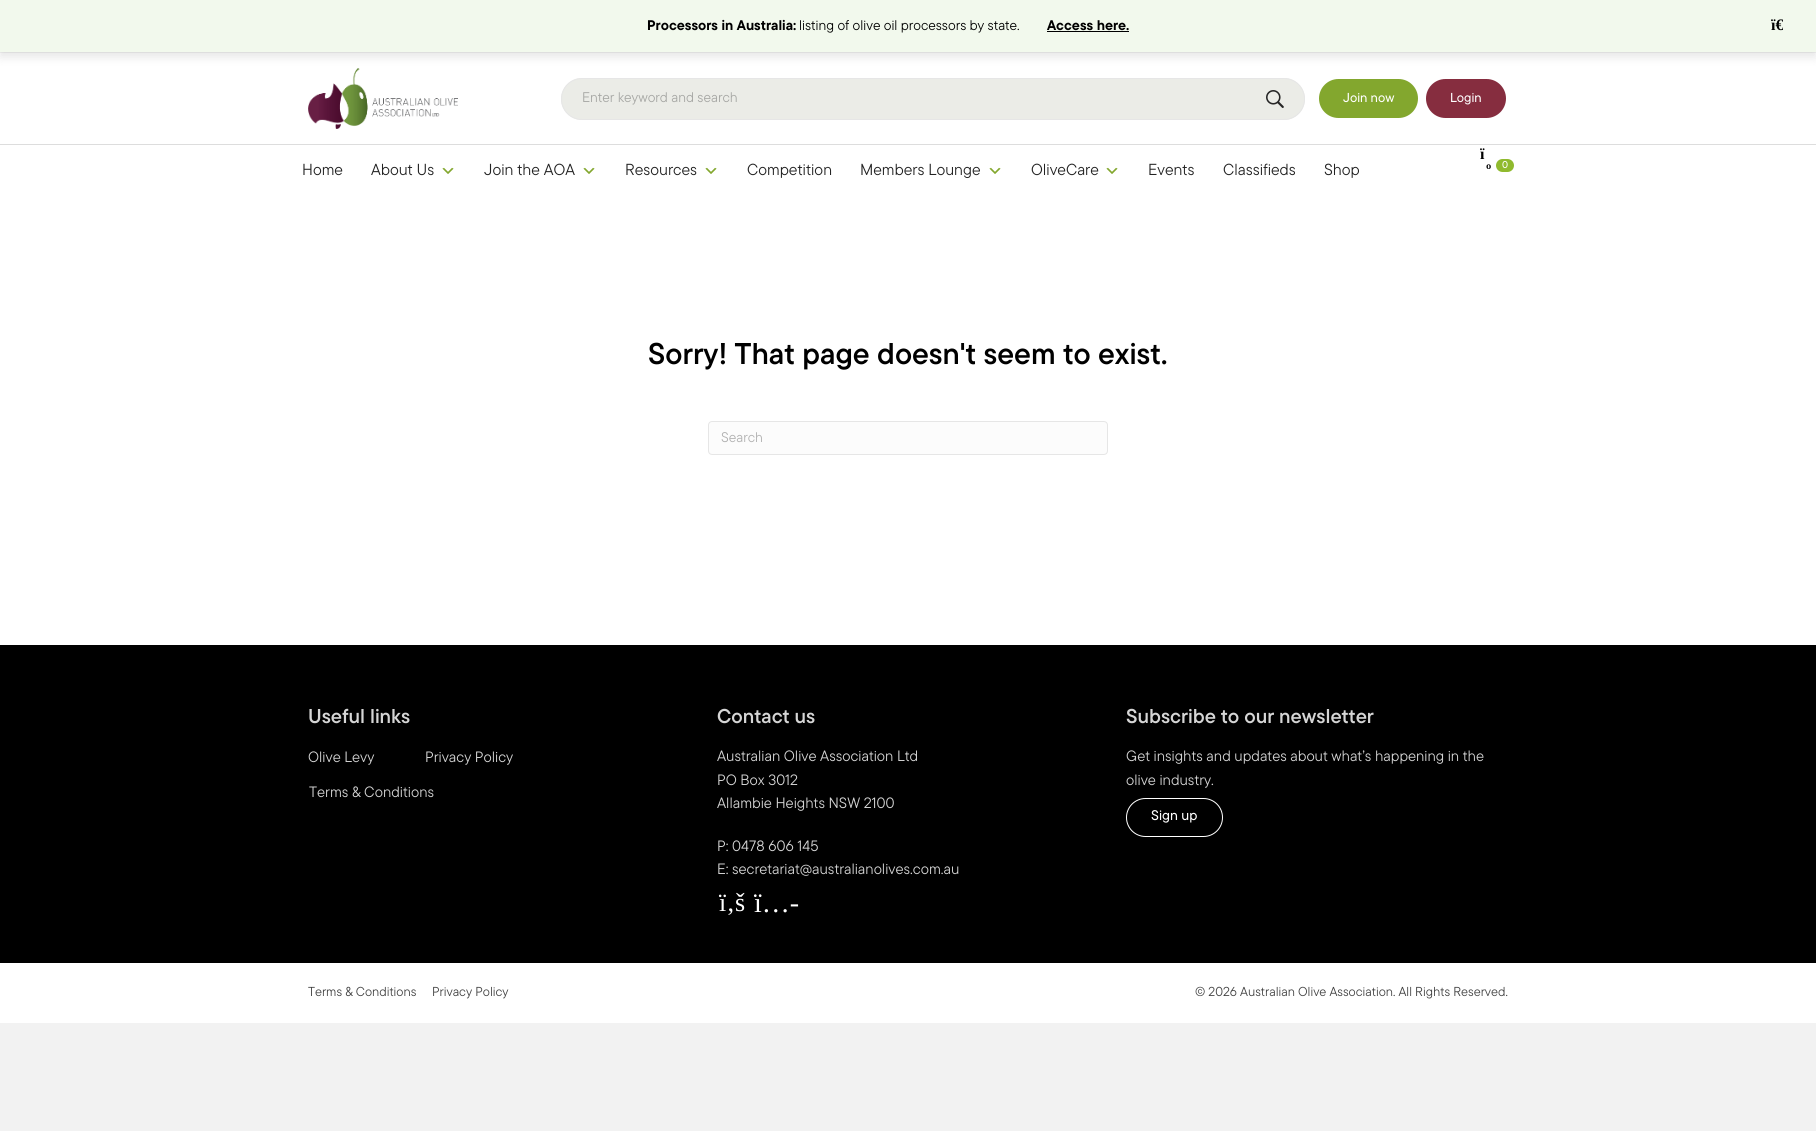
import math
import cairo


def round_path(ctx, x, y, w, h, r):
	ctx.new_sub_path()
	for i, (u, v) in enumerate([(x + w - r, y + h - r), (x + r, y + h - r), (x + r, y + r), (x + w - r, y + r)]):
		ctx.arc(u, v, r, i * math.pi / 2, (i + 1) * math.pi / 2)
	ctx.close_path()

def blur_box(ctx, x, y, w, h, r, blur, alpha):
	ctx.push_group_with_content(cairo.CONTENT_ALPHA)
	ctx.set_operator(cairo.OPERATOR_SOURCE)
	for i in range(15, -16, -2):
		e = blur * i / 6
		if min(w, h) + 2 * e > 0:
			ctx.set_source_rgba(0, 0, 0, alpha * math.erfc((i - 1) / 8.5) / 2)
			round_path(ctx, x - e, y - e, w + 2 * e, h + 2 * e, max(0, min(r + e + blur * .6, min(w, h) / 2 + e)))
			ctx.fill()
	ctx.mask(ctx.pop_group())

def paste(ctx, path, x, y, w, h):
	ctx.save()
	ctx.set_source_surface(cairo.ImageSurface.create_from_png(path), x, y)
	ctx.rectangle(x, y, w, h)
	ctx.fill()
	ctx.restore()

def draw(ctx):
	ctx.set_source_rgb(0.949, 0.949, 0.949)
	ctx.paint()
	ctx.set_source_rgb(1, 1, 1)
	ctx.rectangle(0, 53, 1816, 91)
	ctx.fill()
	paste(ctx, 'media/1.png', 308, 68, 150, 61)
	ctx.set_source_rgb(0, 0, 0)
	blur_box(ctx, 0, 5, 1816, 52, 0, 5, 0.1)
	ctx.set_source_rgb(0.949, 0.976, 0.929)
	ctx.rectangle(0, 0, 1816, 52)
	ctx.fill()
	ctx.select_font_face('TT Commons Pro', cairo.FONT_SLANT_NORMAL, cairo.FONT_WEIGHT_BOLD)
	ctx.set_font_size(14)
	ctx.set_source_rgb(0, 0, 0)
	ctx.move_to(647, 30)
	ctx.show_text('Processors in Australia:')
	ctx.select_font_face('TT Commons Pro')
	ctx.move_to(799, 30)
	ctx.show_text('listing of olive oil processors by state.')
	ctx.select_font_face('TT Commons Pro', cairo.FONT_SLANT_NORMAL, cairo.FONT_WEIGHT_BOLD)
	ctx.move_to(1047, 30)
	ctx.show_text('Access here.')
	ctx.rectangle(1047, 31, 82, 1)
	ctx.fill()
	ctx.select_font_face('Liberation Serif', cairo.FONT_SLANT_NORMAL, cairo.FONT_WEIGHT_BOLD)
	ctx.set_font_size(16)
	ctx.move_to(1771, 30)
	ctx.show_text('ï€')
	ctx.set_source_rgb(0.918, 0.922, 0.906)
	round_path(ctx, 561, 78, 744, 42, 21)
	ctx.fill()
	paste(ctx, 'media/2.png', 1266, 90, 18, 18)
	round_path(ctx, 561.5, 78.5, 743, 41, 20.5)
	ctx.set_source_rgb(0.902, 0.902, 0.902)
	ctx.set_line_width(1)
	ctx.stroke()
	ctx.select_font_face('TT Commons Pro')
	ctx.set_font_size(14)
	ctx.set_source_rgb(0.651, 0.655, 0.643)
	ctx.move_to(582, 102)
	ctx.show_text('Enter keyword and search')
	ctx.set_source_rgb(0.514, 0.655, 0.18)
	round_path(ctx, 1319, 79, 99, 39, 19.5)
	ctx.fill()
	ctx.select_font_face('TT Commons Pro Medium')
	ctx.set_font_size(13)
	ctx.set_source_rgb(1, 1, 1)
	ctx.move_to(1343, 102)
	ctx.show_text('Join now')
	ctx.set_source_rgb(0.525, 0.176, 0.247)
	round_path(ctx, 1426, 79, 80, 39, 19.5)
	ctx.fill()
	ctx.set_source_rgb(1, 1, 1)
	ctx.move_to(1450, 102)
	ctx.show_text('Login')
	ctx.set_source_rgb(0.867, 0.867, 0.867)
	ctx.rectangle(0, 144, 1816, 1)
	ctx.fill()
	ctx.set_source_rgb(1, 1, 1)
	ctx.rectangle(0, 145, 1816, 500)
	ctx.fill()
	ctx.select_font_face('TT Commons Pro')
	ctx.set_font_size(16)
	ctx.set_source_rgb(0.133, 0.133, 0.133)
	ctx.move_to(302, 175)
	ctx.show_text('Home')
	ctx.move_to(371, 175)
	ctx.show_text('About Us')
	paste(ctx, 'media/3.png', 442, 167, 12, 7)
	ctx.move_to(484, 175)
	ctx.show_text('Join the AOA')
	paste(ctx, 'media/3.png', 583, 167, 12, 7)
	ctx.move_to(625, 175)
	ctx.show_text('Resources')
	paste(ctx, 'media/3.png', 705, 167, 12, 7)
	ctx.move_to(747, 175)
	ctx.show_text('Competition')
	ctx.move_to(860, 175)
	ctx.show_text('Members Lounge')
	paste(ctx, 'media/3.png', 989, 167, 12, 7)
	ctx.move_to(1031, 175)
	ctx.show_text('OliveCare')
	paste(ctx, 'media/3.png', 1106, 167, 12, 7)
	for x, y, s in [
		(1148, 175, 'Events'),
		(1223, 175, 'Classifieds'),
		(1324, 175, 'Shop'),
	]:
		ctx.move_to(x, y)
		ctx.show_text(s)
	ctx.select_font_face('Liberation Serif', cairo.FONT_SLANT_NORMAL, cairo.FONT_WEIGHT_BOLD)
	ctx.set_source_rgb(0, 0, 0)
	ctx.move_to(1480, 159)
	ctx.show_text('ï')
	ctx.move_to(1486, 175)
	ctx.show_text('º')
	ctx.set_source_rgb(0.565, 0.729, 0.18)
	round_path(ctx, 1496, 159, 18, 13, 6.5)
	ctx.fill()
	ctx.select_font_face('TT Commons Pro Medium')
	ctx.set_font_size(10)
	ctx.set_source_rgb(1, 1, 1)
	ctx.move_to(1502, 168)
	ctx.show_text('0')
	ctx.select_font_face('TT Commons Pro SemiBold')
	ctx.set_font_size(30)
	ctx.set_source_rgb(0, 0, 0)
	ctx.move_to(648, 364)
	ctx.show_text('Sorry! That page doesn\'t seem to exist.')
	ctx.set_source_rgb(0.988, 0.988, 0.988)
	round_path(ctx, 708.5, 421.5, 399, 33, 3.5)
	ctx.fill_preserve()
	ctx.set_source_rgb(0.902, 0.902, 0.902)
	ctx.stroke()
	ctx.select_font_face('TT Commons Pro')
	ctx.set_font_size(14)
	ctx.set_source_rgb(0.694, 0.694, 0.694)
	ctx.move_to(721, 442)
	ctx.show_text('Search')
	ctx.set_source_rgb(0, 0, 0)
	ctx.rectangle(0, 645, 1816, 318)
	ctx.fill()
	ctx.select_font_face('TT Commons Pro SemiBold')
	ctx.set_font_size(20)
	ctx.set_source_rgb(0.835, 0.835, 0.835)
	ctx.move_to(308, 723)
	ctx.show_text('Useful links')
	ctx.select_font_face('TT Commons Pro')
	ctx.set_font_size(15)
	for x, y, s in [
		(308, 762, 'Olive Levy'),
		(425, 762, 'Privacy Policy'),
		(309, 797, 'Terms & Conditions'),
	]:
		ctx.move_to(x, y)
		ctx.show_text(s)
	ctx.select_font_face('TT Commons Pro SemiBold')
	ctx.set_font_size(20)
	ctx.move_to(717, 723)
	ctx.show_text('Contact us')
	ctx.select_font_face('TT Commons Pro')
	ctx.set_font_size(15)
	for x, y, s in [
		(717, 761, 'Australian Olive Association Ltd'),
		(717, 785, 'PO Box 3012'),
		(717, 808, 'Allambie Heights NSW 2100'),
		(717, 851, 'P: 0478 606 145'),
		(717, 874, 'E: secretariat@australianolives.com.au'),
	]:
		ctx.move_to(x, y)
		ctx.show_text(s)
	ctx.select_font_face('Liberation Serif')
	ctx.set_font_size(26)
	ctx.set_source_rgb(1, 1, 1)
	ctx.move_to(719, 911)
	ctx.show_text('ï‚š')
	ctx.set_font_size(28)
	ctx.move_to(754, 912)
	ctx.show_text('ï…-')
	ctx.select_font_face('TT Commons Pro SemiBold')
	ctx.set_font_size(20)
	ctx.set_source_rgb(0.835, 0.835, 0.835)
	ctx.move_to(1126, 723)
	ctx.show_text('Subscribe to our newsletter')
	ctx.select_font_face('TT Commons Pro')
	ctx.set_font_size(15)
	ctx.move_to(1126, 761)
	ctx.show_text('Get insights and updates about what’s happening in the')
	ctx.move_to(1126, 785)
	ctx.show_text('olive industry.')
	round_path(ctx, 1126.5, 798.5, 96, 38, 19)
	ctx.set_source_rgb(1, 1, 1)
	ctx.stroke()
	ctx.select_font_face('TT Commons Pro Medium')
	ctx.set_font_size(14)
	ctx.move_to(1151, 820)
	ctx.show_text('Sign up')
	ctx.rectangle(0, 963, 1816, 60)
	ctx.fill()
	ctx.select_font_face('TT Commons Pro')
	ctx.set_font_size(13)
	ctx.set_source_rgb(0.251, 0.251, 0.251)
	for x, y, s in [
		(308, 996, 'Terms & Conditions'),
		(432, 996, 'Privacy Policy'),
		(1195, 996, '© 2026 Australian Olive Association. All Rights Reserved.'),
	]:
		ctx.move_to(x, y)
		ctx.show_text(s)


surface = cairo.ImageSurface(cairo.FORMAT_RGB24, 1816, 1131)
ctx = cairo.Context(surface)
options = cairo.FontOptions()
options.set_hint_metrics(cairo.HINT_METRICS_OFF)
options.set_hint_style(cairo.HINT_STYLE_NONE)
ctx.set_font_options(options)
ctx.set_miter_limit(4)
draw(ctx)
surface.write_to_png('image.png')
